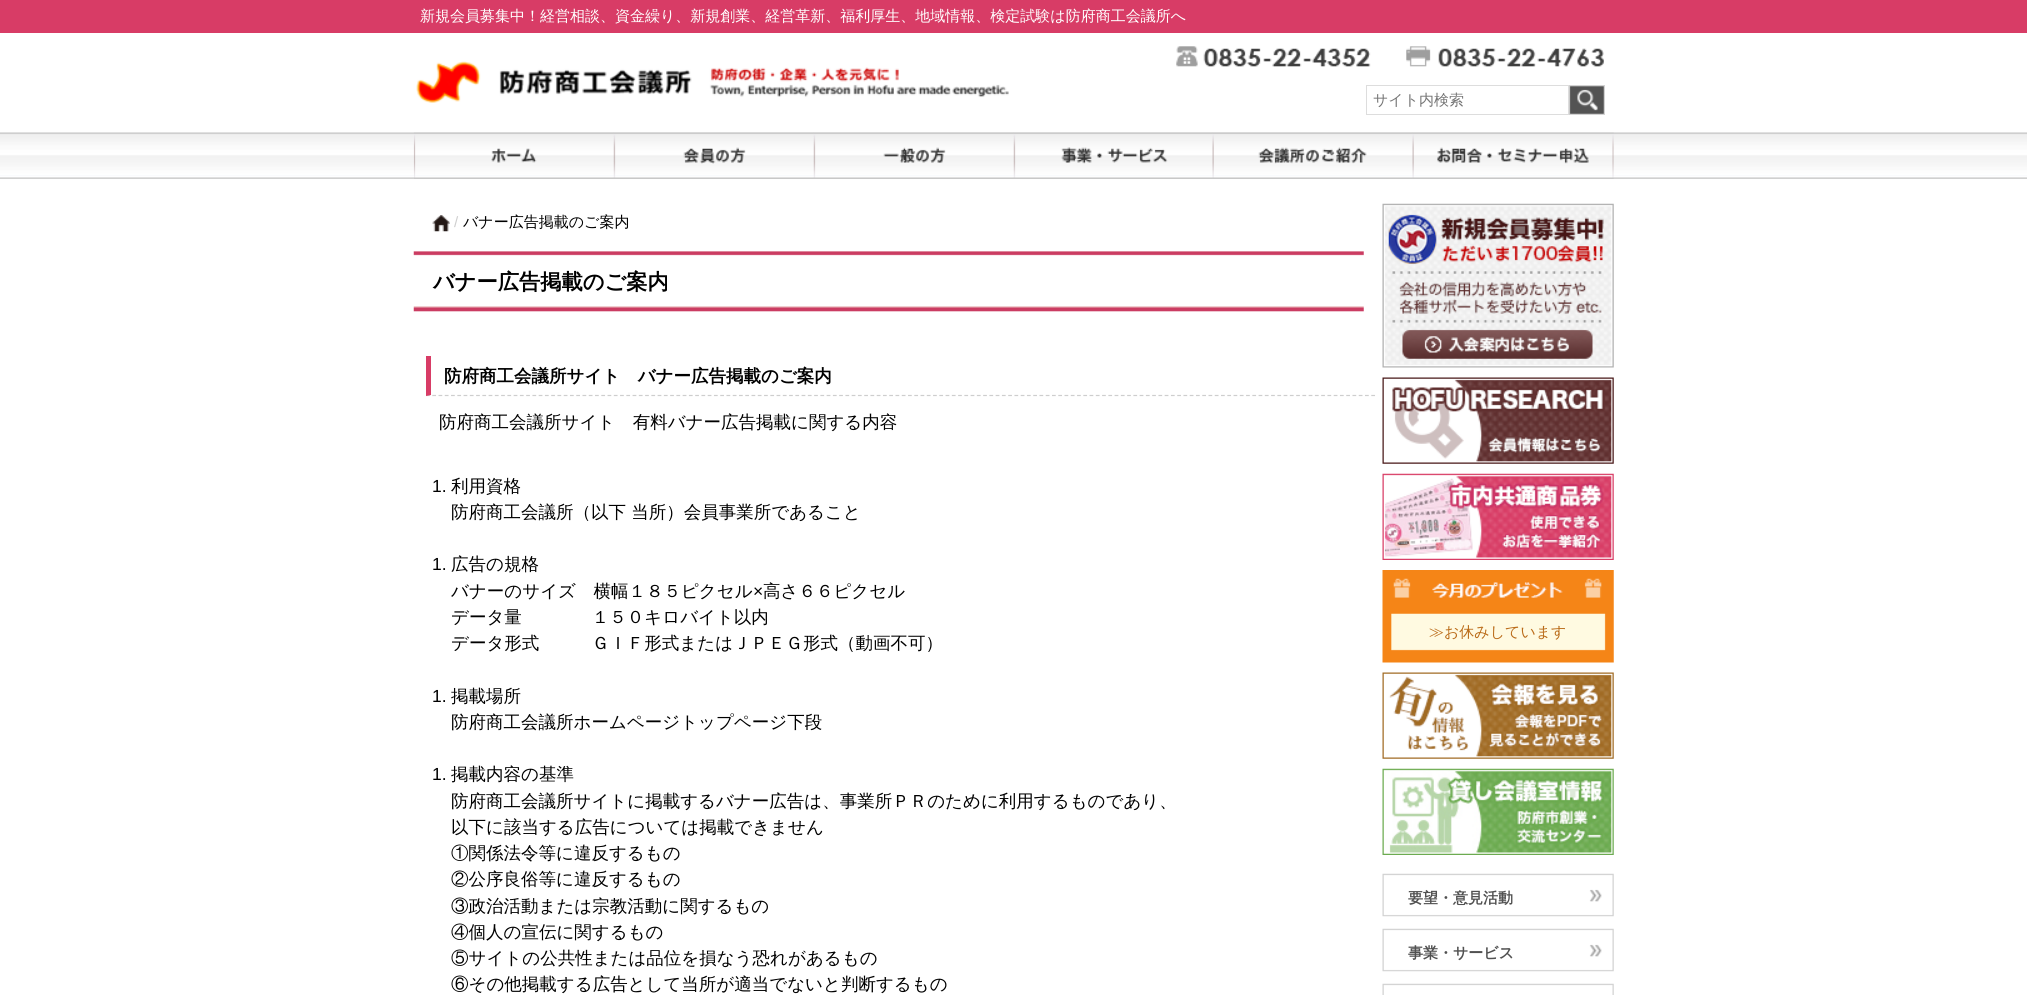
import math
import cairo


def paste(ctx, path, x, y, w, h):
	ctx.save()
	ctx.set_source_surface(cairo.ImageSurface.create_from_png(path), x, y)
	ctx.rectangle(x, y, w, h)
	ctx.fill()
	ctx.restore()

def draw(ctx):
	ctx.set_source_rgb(1, 1, 1)
	ctx.paint()
	ctx.set_source_rgb(0.847, 0.235, 0.4)
	ctx.rectangle(0, 0, 2027, 33)
	ctx.fill()
	ctx.select_font_face('WenQuanYi Zen Hei Medium')
	ctx.set_font_size(15)
	ctx.set_source_rgb(1, 1, 1)
	ctx.move_to(420, 21)
	ctx.show_text('新規会員募集中！経営相談、資金繰り、新規創業、経営革新、福利厚生、地域情報、検定試験は防府商工会議所へ')
	paste(ctx, 'media/1.png', 416, 61, 593, 42)
	paste(ctx, 'media/2.png', 1176, 46, 195, 21)
	paste(ctx, 'media/3.png', 1406, 46, 198, 21)
	ctx.rectangle(1366.5, 85.5, 202, 29)
	ctx.set_source_rgb(0.867, 0.867, 0.867)
	ctx.set_line_width(1)
	ctx.stroke()
	ctx.set_source_rgb(0.459, 0.459, 0.459)
	ctx.move_to(1373, 105)
	ctx.show_text('サイト内検索')
	paste(ctx, 'media/4.png', 1569, 85, 36, 30)
	paste(ctx, 'media/5.png', 0, 132, 2027, 47)
	paste(ctx, 'media/6.png', 413, 132, 201, 47)
	paste(ctx, 'media/7.png', 613, 132, 201, 47)
	paste(ctx, 'media/8.png', 813, 132, 201, 47)
	paste(ctx, 'media/9.png', 1013, 132, 200, 47)
	paste(ctx, 'media/10.png', 1212, 132, 201, 47)
	paste(ctx, 'media/11.png', 1412, 132, 202, 47)
	paste(ctx, 'media/12.png', 432, 215, 18, 17)
	ctx.select_font_face('Liberation Sans')
	ctx.set_source_rgb(0.808, 0.808, 0.808)
	ctx.move_to(454, 227)
	ctx.show_text('/')
	ctx.select_font_face('WenQuanYi Zen Hei Medium')
	ctx.set_source_rgb(0, 0, 0)
	ctx.move_to(463, 227)
	ctx.show_text('バナー広告掲載のご案内')
	paste(ctx, 'media/13.png', 413, 251, 951, 61)
	ctx.select_font_face('WenQuanYi Zen Hei', cairo.FONT_SLANT_NORMAL, cairo.FONT_WEIGHT_BOLD)
	ctx.set_font_size(21.25)
	ctx.move_to(433, 289)
	ctx.show_text('バナー広告掲載のご案内')
	ctx.new_path()
	ctx.move_to(426, 395.5)
	ctx.line_to(1376, 395.5)
	ctx.set_source_rgb(0.808, 0.808, 0.808)
	ctx.set_line_width(1.2)
	ctx.set_dash([3.75, 2.51])
	ctx.stroke()
	ctx.set_source_rgb(0.847, 0.235, 0.4)
	ctx.new_path()
	ctx.move_to(426, 396)
	ctx.line_to(426, 356)
	ctx.line_to(431, 356)
	ctx.line_to(431, 395)
	ctx.close_path()
	ctx.fill()
	ctx.set_font_size(17.5)
	ctx.set_source_rgb(0, 0, 0)
	ctx.move_to(444, 382)
	ctx.show_text('防府商工会議所サイト　バナー広告掲載のご案内')
	ctx.select_font_face('WenQuanYi Zen Hei Medium')
	ctx.move_to(439, 428)
	ctx.show_text('防府商工会議所サイト　有料バナー広告掲載に関する内容')
	ctx.select_font_face('Liberation Sans')
	ctx.move_to(432, 492)
	ctx.show_text('1.')
	ctx.select_font_face('WenQuanYi Zen Hei Medium')
	ctx.move_to(451, 492)
	ctx.show_text('利用資格')
	ctx.move_to(451, 518)
	ctx.show_text('防府商工会議所（以下 当所）会員事業所であること')
	ctx.select_font_face('Liberation Sans')
	ctx.move_to(432, 570)
	ctx.show_text('1.')
	ctx.select_font_face('WenQuanYi Zen Hei Medium')
	ctx.move_to(451, 570)
	ctx.show_text('広告の規格')
	ctx.move_to(451, 597)
	ctx.show_text('バナーのサイズ　横幅１８５ピクセル')
	ctx.select_font_face('Liberation Sans')
	ctx.move_to(753, 597)
	ctx.show_text('×')
	ctx.select_font_face('WenQuanYi Zen Hei Medium')
	for x, y, s in [
		(763, 597, '高さ６６ピクセル'),
		(451, 623, 'データ量　　　　１５０キロバイト以内'),
		(451, 649, 'データ形式　　　ＧＩＦ形式またはＪＰＥＧ形式（動画不可）'),
	]:
		ctx.move_to(x, y)
		ctx.show_text(s)
	ctx.select_font_face('Liberation Sans')
	ctx.move_to(432, 702)
	ctx.show_text('1.')
	ctx.select_font_face('WenQuanYi Zen Hei Medium')
	ctx.move_to(451, 702)
	ctx.show_text('掲載場所')
	ctx.move_to(451, 728)
	ctx.show_text('防府商工会議所ホームページトップページ下段')
	ctx.select_font_face('Liberation Sans')
	ctx.move_to(432, 780)
	ctx.show_text('1.')
	ctx.select_font_face('WenQuanYi Zen Hei Medium')
	for x, y, s in [
		(451, 780, '掲載内容の基準'),
		(451, 807, '防府商工会議所サイトに掲載するバナー広告は、事業所ＰＲのために利用するものであり、'),
		(451, 833, '以下に該当する広告については掲載できません'),
		(451, 859, '①関係法令等に違反するもの'),
		(451, 885, '②公序良俗等に違反するもの'),
		(451, 912, '③政治活動または宗教活動に関するもの'),
		(451, 938, '④個人の宣伝に関するもの'),
		(451, 964, '⑤サイトの公共性または品位を損なう恐れがあるもの'),
		(451, 990, '⑥その他掲載する広告として当所が適当でないと判断するもの'),
	]:
		ctx.move_to(x, y)
		ctx.show_text(s)
	paste(ctx, 'media/14.png', 1382, 203, 232, 165)
	paste(ctx, 'media/15.png', 1382, 377, 232, 87)
	paste(ctx, 'media/16.png', 1382, 473, 232, 87)
	paste(ctx, 'media/17.png', 1382, 570, 232, 93)
	ctx.set_font_size(15)
	ctx.set_source_rgb(0.729, 0.42, 0.094)
	ctx.move_to(1429, 637)
	ctx.show_text('≫お休みしています')
	paste(ctx, 'media/18.png', 1382, 672, 232, 87)
	paste(ctx, 'media/19.png', 1382, 768, 232, 87)
	paste(ctx, 'media/20.png', 1382, 873, 232, 44)
	ctx.select_font_face('WenQuanYi Zen Hei', cairo.FONT_SLANT_NORMAL, cairo.FONT_WEIGHT_BOLD)
	ctx.set_source_rgb(0.318, 0.318, 0.318)
	ctx.move_to(1408, 903)
	ctx.show_text('要望・意見活動')
	paste(ctx, 'media/20.png', 1382, 928, 232, 44)
	ctx.move_to(1408, 958)
	ctx.show_text('事業・サービス')
	paste(ctx, 'media/21.png', 1382, 983, 232, 12)


surface = cairo.ImageSurface(cairo.FORMAT_RGB24, 2027, 995)
ctx = cairo.Context(surface)
options = cairo.FontOptions()
options.set_hint_metrics(cairo.HINT_METRICS_OFF)
options.set_hint_style(cairo.HINT_STYLE_NONE)
ctx.set_font_options(options)
ctx.set_miter_limit(4)
draw(ctx)
surface.write_to_png('image.png')
